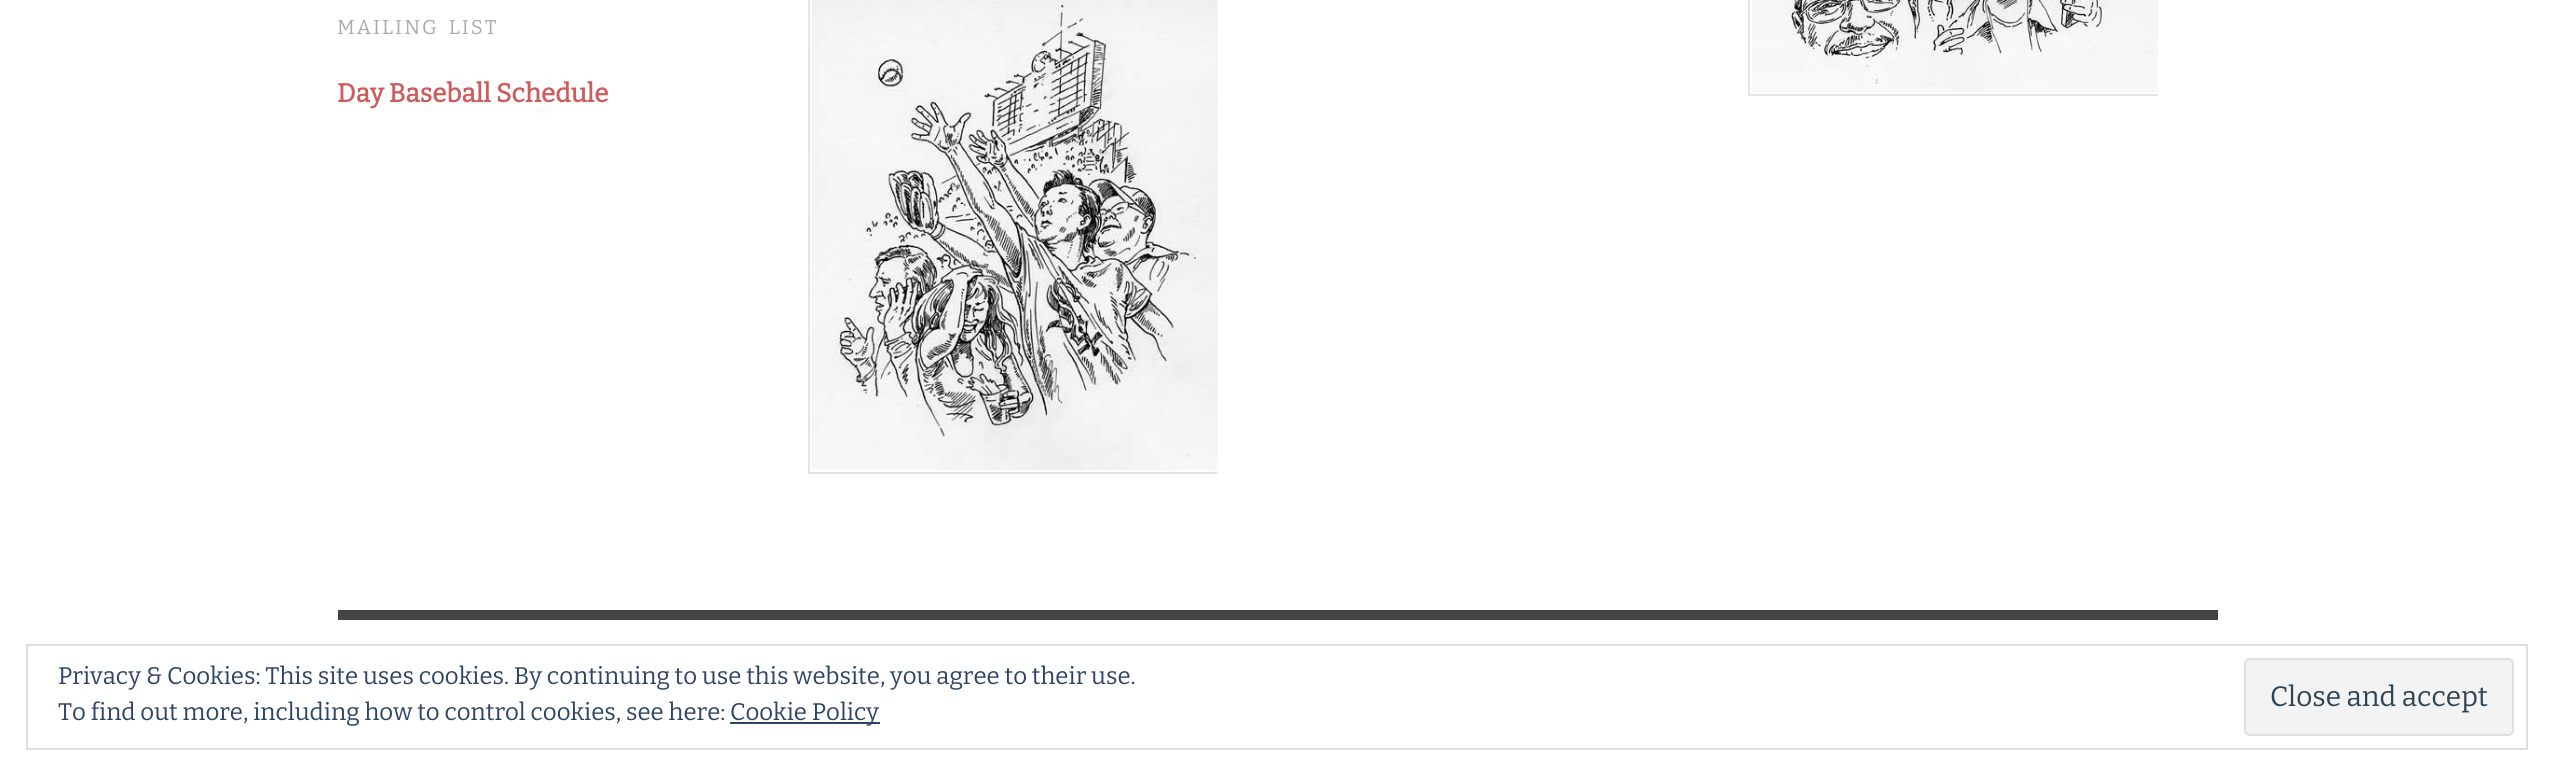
import math
import cairo


def write_spaced(ctx, x, y, s, letter, word):
	ctx.move_to(x, y)
	for ch in s:
		ctx.show_text(ch)
		ctx.rel_move_to(letter + word * (ch == ' '), 0)

def round_path(ctx, x, y, w, h, r):
	ctx.new_sub_path()
	for i, (u, v) in enumerate([(x + w - r, y + h - r), (x + r, y + h - r), (x + r, y + r), (x + w - r, y + r)]):
		ctx.arc(u, v, r, i * math.pi / 2, (i + 1) * math.pi / 2)
	ctx.close_path()

def paste(ctx, path, x, y, w, h):
	ctx.save()
	ctx.set_source_surface(cairo.ImageSurface.create_from_png(path), x, y)
	ctx.rectangle(x, y, w, h)
	ctx.fill()
	ctx.restore()

def draw(ctx):
	ctx.set_source_rgb(1, 1, 1)
	ctx.paint()
	ctx.select_font_face('Bitter Thin')
	ctx.set_font_size(20)
	ctx.set_source_rgb(0.667, 0.667, 0.667)
	write_spaced(ctx, 337, 34, 'MAILING LIST', 2, 4)
	ctx.select_font_face('Bitter', cairo.FONT_SLANT_NORMAL, cairo.FONT_WEIGHT_BOLD)
	ctx.set_font_size(26)
	ctx.set_source_rgb(0.804, 0.361, 0.361)
	ctx.move_to(337, 102)
	ctx.show_text('Day Baseball Schedule')
	ctx.save()
	ctx.rectangle(808, 0, 410, 518)
	ctx.clip()
	ctx.rectangle(809, -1, 416, 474)
	ctx.set_source_rgb(0.898, 0.898, 0.898)
	ctx.stroke()
	ctx.restore()
	paste(ctx, 'media/1.png', 812, 0, 406, 470)
	ctx.save()
	ctx.rectangle(1748, 0, 410, 140)
	ctx.clip()
	ctx.rectangle(1749, -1, 416, 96)
	ctx.set_source_rgb(0.898, 0.898, 0.898)
	ctx.stroke()
	ctx.restore()
	paste(ctx, 'media/2.png', 1752, 0, 406, 92)
	ctx.set_source_rgb(0.267, 0.267, 0.267)
	ctx.rectangle(338, 610, 1880, 10)
	ctx.fill()
	ctx.rectangle(27, 645, 2500, 104)
	ctx.set_source_rgb(0.871, 0.871, 0.871)
	ctx.stroke()
	ctx.select_font_face('Bitter Thin')
	ctx.set_font_size(24)
	ctx.set_source_rgb(0.18, 0.267, 0.404)
	ctx.move_to(58, 684)
	ctx.show_text('Privacy & Cookies: This site uses cookies. By continuing to use this website, you agree to their use.')
	ctx.move_to(58, 720)
	ctx.show_text('To find out more, including how to control cookies, see here:')
	ctx.rectangle(730, 722, 150, 2)
	ctx.fill()
	ctx.move_to(730, 720)
	ctx.show_text('Cookie Policy')
	ctx.set_source_rgb(0.953, 0.953, 0.953)
	round_path(ctx, 2245, 659, 268, 76, 5)
	ctx.fill_preserve()
	ctx.set_source_rgb(0.871, 0.871, 0.871)
	ctx.stroke()
	ctx.set_font_size(28)
	ctx.set_source_rgb(0.18, 0.267, 0.325)
	ctx.move_to(2270, 706)
	ctx.show_text('Close and accept')


surface = cairo.ImageSurface(cairo.FORMAT_RGB24, 2554, 776)
ctx = cairo.Context(surface)
options = cairo.FontOptions()
options.set_hint_metrics(cairo.HINT_METRICS_OFF)
options.set_hint_style(cairo.HINT_STYLE_NONE)
ctx.set_font_options(options)
ctx.set_miter_limit(4)
draw(ctx)
surface.write_to_png('image.png')
